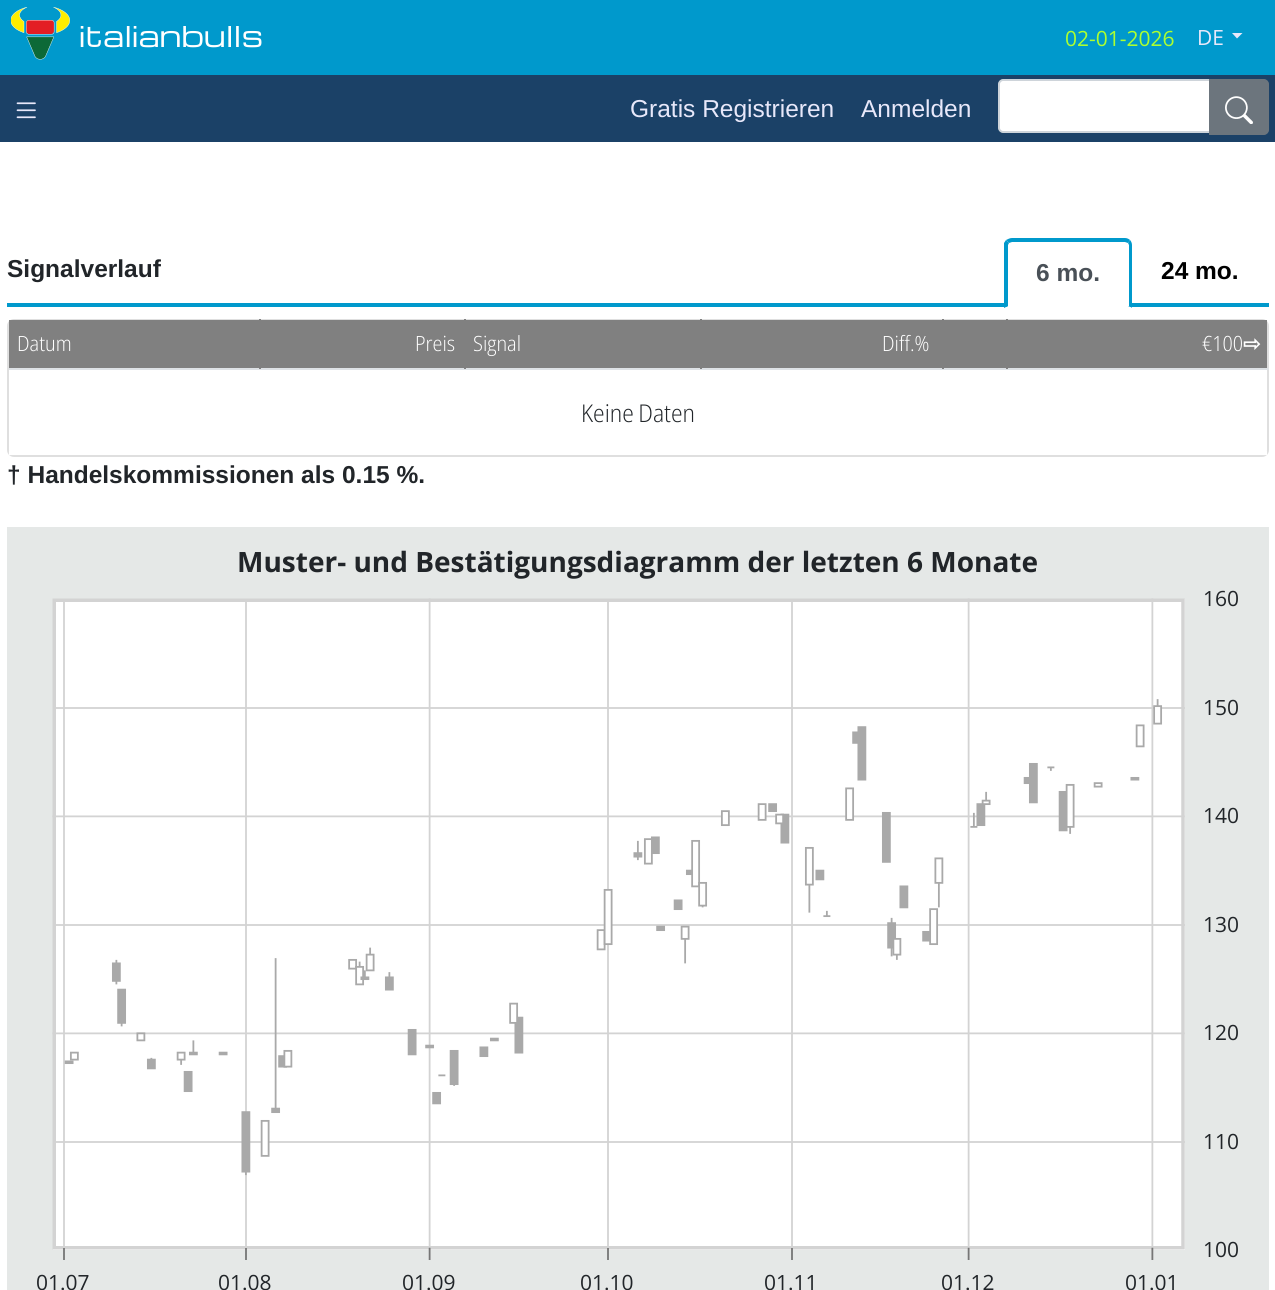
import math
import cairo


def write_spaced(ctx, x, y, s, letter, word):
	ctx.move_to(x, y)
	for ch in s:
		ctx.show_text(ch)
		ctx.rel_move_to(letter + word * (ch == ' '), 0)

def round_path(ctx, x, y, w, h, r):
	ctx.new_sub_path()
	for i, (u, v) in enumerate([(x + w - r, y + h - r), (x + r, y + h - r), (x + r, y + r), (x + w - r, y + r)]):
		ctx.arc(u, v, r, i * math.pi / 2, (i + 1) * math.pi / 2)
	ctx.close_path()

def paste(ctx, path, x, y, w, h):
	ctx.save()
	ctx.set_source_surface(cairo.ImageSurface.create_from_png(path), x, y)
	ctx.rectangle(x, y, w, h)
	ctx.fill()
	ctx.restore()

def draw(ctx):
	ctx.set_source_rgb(1, 1, 1)
	ctx.paint()
	ctx.set_source_rgb(0, 0.6, 0.8)
	ctx.rectangle(0, 0, 1275, 75)
	ctx.fill()
	paste(ctx, 'media/1.png', 11, 7, 59, 53)
	ctx.select_font_face('Michroma')
	ctx.set_font_size(28)
	ctx.set_source_rgb(1, 1, 1)
	ctx.move_to(79, 47)
	ctx.show_text('italianbulls')
	ctx.select_font_face('Open Sans')
	ctx.set_font_size(21)
	ctx.set_source_rgb(0.678, 1, 0.184)
	ctx.move_to(1065, 46)
	ctx.show_text('02-01-2026')
	ctx.set_source_rgb(0.91, 0.91, 0.98)
	ctx.move_to(1197, 45)
	ctx.show_text('DE')
	ctx.new_path()
	ctx.move_to(1232, 33)
	ctx.line_to(1242.5, 33)
	ctx.line_to(1237, 38.5)
	ctx.close_path()
	ctx.fill()
	ctx.set_source_rgb(0.106, 0.255, 0.404)
	ctx.rectangle(0, 75, 1275, 67)
	ctx.fill()
	paste(ctx, 'media/2.png', 16, 102, 20, 17)
	ctx.select_font_face('Liberation Sans')
	ctx.set_font_size(24.5)
	ctx.set_source_rgb(0.91, 0.91, 0.98)
	ctx.move_to(630, 117)
	ctx.show_text('Gratis Registrieren')
	ctx.move_to(861, 117)
	ctx.show_text('Anmelden')
	ctx.set_source_rgb(1, 1, 1)
	ctx.new_path()
	ctx.move_to(1003, 80)
	ctx.line_to(1210, 80)
	ctx.line_to(1210, 132)
	ctx.line_to(1003, 132)
	ctx.curve_to(1001, 132, 999, 130, 999, 128)
	ctx.line_to(999, 84)
	ctx.curve_to(999, 82, 1001, 80, 1003, 80)
	ctx.close_path()
	ctx.fill_preserve()
	ctx.set_source_rgb(0.808, 0.831, 0.855)
	ctx.stroke()
	ctx.set_source_rgb(0.424, 0.459, 0.49)
	ctx.new_path()
	ctx.move_to(1210, 80)
	ctx.line_to(1264, 80)
	ctx.curve_to(1266, 80, 1268, 82, 1268, 84)
	ctx.line_to(1268, 130)
	ctx.curve_to(1268, 132, 1266, 134, 1264, 134)
	ctx.line_to(1210, 134)
	ctx.close_path()
	ctx.fill_preserve()
	ctx.stroke()
	paste(ctx, 'media/3.png', 1225, 96, 28, 28)
	ctx.select_font_face('Liberation Sans', cairo.FONT_SLANT_NORMAL, cairo.FONT_WEIGHT_BOLD)
	ctx.set_source_rgb(0.129, 0.145, 0.161)
	ctx.move_to(7, 277)
	ctx.show_text('Signalverlauf')
	ctx.set_source_rgb(0, 0.6, 0.8)
	ctx.rectangle(7, 303, 1262, 4)
	ctx.fill()
	ctx.set_source_rgb(1, 1, 1)
	ctx.new_path()
	ctx.move_to(1012, 242)
	ctx.line_to(1125, 242)
	ctx.curve_to(1127, 242, 1129, 244, 1129, 246)
	ctx.line_to(1129, 306)
	ctx.line_to(1008, 306)
	ctx.line_to(1008, 246)
	ctx.curve_to(1008, 244, 1010, 242, 1012, 242)
	ctx.close_path()
	ctx.fill()
	ctx.set_source_rgb(0, 0.6, 0.8)
	ctx.new_path()
	ctx.move_to(1012, 238)
	ctx.curve_to(1010, 238, 1008, 239, 1006, 240)
	ctx.line_to(1009, 243)
	ctx.line_to(1012, 242)
	ctx.line_to(1125, 242)
	ctx.line_to(1128, 243)
	ctx.line_to(1130, 240)
	ctx.curve_to(1129, 239, 1127, 238, 1125, 238)
	ctx.close_path()
	ctx.fill()
	ctx.new_path()
	ctx.move_to(1130, 240)
	ctx.curve_to(1131, 241, 1132, 243, 1132, 245)
	ctx.line_to(1132, 308)
	ctx.line_to(1128, 306)
	ctx.line_to(1129, 306)
	ctx.line_to(1129, 245)
	ctx.line_to(1128, 243)
	ctx.close_path()
	ctx.fill()
	ctx.set_source_rgb(1, 1, 1)
	ctx.new_path()
	ctx.move_to(1004, 308)
	ctx.line_to(1132, 308)
	ctx.line_to(1128, 306)
	ctx.line_to(1008, 306)
	ctx.close_path()
	ctx.fill()
	ctx.set_source_rgb(0, 0.6, 0.8)
	ctx.new_path()
	ctx.move_to(1004, 308)
	ctx.line_to(1004, 243)
	ctx.line_to(1006, 240)
	ctx.line_to(1009, 243)
	ctx.line_to(1008, 245)
	ctx.line_to(1008, 306)
	ctx.close_path()
	ctx.fill()
	ctx.set_source_rgb(0.286, 0.314, 0.341)
	ctx.move_to(1036, 281)
	ctx.show_text('6 mo.')
	ctx.set_source_rgb(0, 0, 0)
	ctx.move_to(1161, 279)
	ctx.show_text('24 mo.')
	round_path(ctx, 8, 320, 1260, 136, 6)
	ctx.set_source_rgb(0.875, 0.875, 0.875)
	ctx.stroke()
	ctx.set_source_rgb(0.502, 0.502, 0.502)
	ctx.rectangle(9, 320, 250, 48)
	ctx.fill()
	ctx.select_font_face('Open Sans Light')
	ctx.set_font_size(21)
	ctx.set_source_rgb(1, 1, 1)
	ctx.move_to(17, 351)
	ctx.show_text('Datum')
	ctx.set_source_rgb(0.502, 0.502, 0.502)
	ctx.rectangle(261, 320, 203, 48)
	ctx.fill()
	ctx.set_source_rgb(0.871, 0.886, 0.902)
	ctx.rectangle(9, 368, 1260, 2)
	ctx.fill()
	ctx.set_source_rgb(0.502, 0.502, 0.502)
	ctx.rectangle(259, 319, 2, 50)
	ctx.fill()
	ctx.set_source_rgb(1, 1, 1)
	ctx.move_to(415, 351)
	ctx.show_text('Preis')
	ctx.set_source_rgb(0.502, 0.502, 0.502)
	ctx.rectangle(466, 320, 234, 48)
	ctx.fill()
	ctx.rectangle(464, 319, 2, 50)
	ctx.fill()
	ctx.set_source_rgb(1, 1, 1)
	ctx.move_to(473, 351)
	ctx.show_text('Signal')
	ctx.set_source_rgb(0.502, 0.502, 0.502)
	ctx.rectangle(702, 320, 240, 48)
	ctx.fill()
	ctx.rectangle(700, 319, 2, 50)
	ctx.fill()
	ctx.set_source_rgb(1, 1, 1)
	ctx.move_to(882, 351)
	ctx.show_text('Diff.%')
	ctx.set_source_rgb(0.502, 0.502, 0.502)
	ctx.rectangle(944, 320, 62, 48)
	ctx.rectangle(942, 319, 2, 50)
	ctx.rectangle(1008, 320, 259, 48)
	ctx.rectangle(1006, 319, 2, 50)
	ctx.fill()
	ctx.set_source_rgb(1, 1, 1)
	ctx.move_to(1202, 351)
	ctx.show_text('€100')
	ctx.select_font_face('DejaVu Sans', cairo.FONT_SLANT_NORMAL, cairo.FONT_WEIGHT_BOLD)
	ctx.move_to(1243, 351)
	ctx.show_text('⇨')
	ctx.rectangle(9, 451, 1258, 4)
	ctx.fill()
	ctx.select_font_face('Open Sans Light')
	ctx.set_font_size(24.5)
	ctx.set_source_rgb(0.129, 0.145, 0.161)
	write_spaced(ctx, 581, 422, 'Keine Daten', 0, -1)
	ctx.select_font_face('Liberation Sans', cairo.FONT_SLANT_NORMAL, cairo.FONT_WEIGHT_BOLD)
	ctx.move_to(7, 483)
	ctx.show_text('† Handelskommissionen als 0.15 %.')
	ctx.set_source_rgb(0.898, 0.91, 0.906)
	ctx.rectangle(7, 527, 1262, 763)
	ctx.fill()
	ctx.select_font_face('Open Sans', cairo.FONT_SLANT_NORMAL, cairo.FONT_WEIGHT_BOLD)
	ctx.set_font_size(28)
	ctx.set_source_rgb(0.129, 0.145, 0.161)
	ctx.move_to(237, 572)
	ctx.show_text('Muster- und Bestätigungsdiagramm der letzten 6 Monate')
	paste(ctx, 'media/4.png', 52, 598, 1133, 662)
	ctx.select_font_face('Open Sans')
	ctx.set_font_size(21)
	for x, y, s in [
		(1203, 606, '160'),
		(1203, 715, '150'),
		(1203, 823, '140'),
		(1203, 932, '130'),
		(1203, 1040, '120'),
		(1203, 1149, '110'),
		(1203, 1257, '100'),
		(36, 1290, '01.07'),
		(218, 1290, '01.08'),
		(402, 1290, '01.09'),
		(580, 1290, '01.10'),
		(764, 1290, '01.11'),
		(941, 1290, '01.12'),
		(1125, 1290, '01.01'),
	]:
		ctx.move_to(x, y)
		ctx.show_text(s)


surface = cairo.ImageSurface(cairo.FORMAT_RGB24, 1275, 1290)
ctx = cairo.Context(surface)
options = cairo.FontOptions()
options.set_hint_metrics(cairo.HINT_METRICS_OFF)
options.set_hint_style(cairo.HINT_STYLE_NONE)
ctx.set_font_options(options)
ctx.set_miter_limit(4)
draw(ctx)
surface.write_to_png('image.png')
